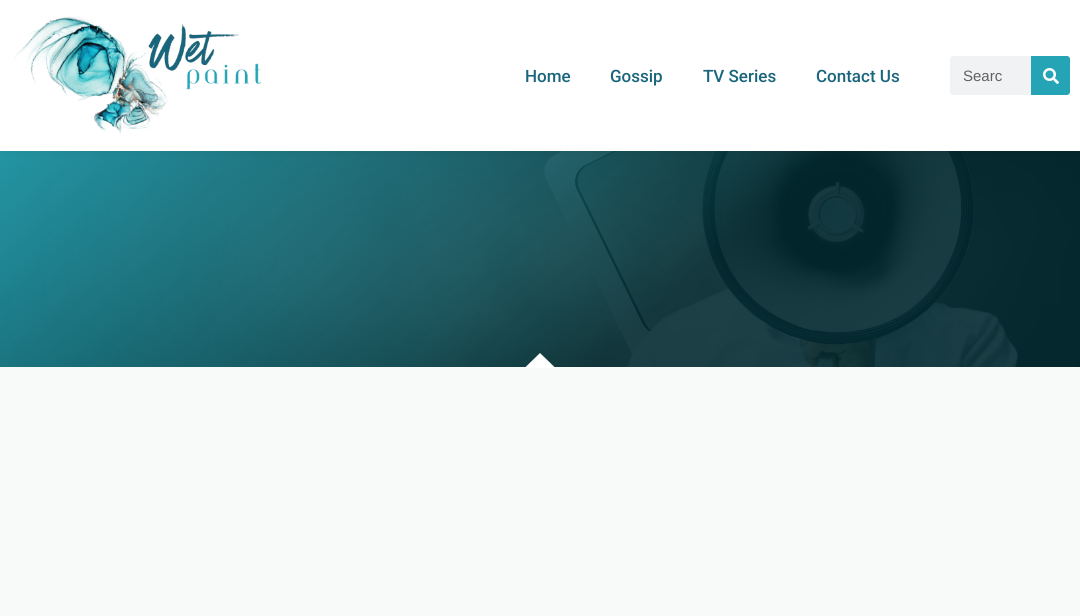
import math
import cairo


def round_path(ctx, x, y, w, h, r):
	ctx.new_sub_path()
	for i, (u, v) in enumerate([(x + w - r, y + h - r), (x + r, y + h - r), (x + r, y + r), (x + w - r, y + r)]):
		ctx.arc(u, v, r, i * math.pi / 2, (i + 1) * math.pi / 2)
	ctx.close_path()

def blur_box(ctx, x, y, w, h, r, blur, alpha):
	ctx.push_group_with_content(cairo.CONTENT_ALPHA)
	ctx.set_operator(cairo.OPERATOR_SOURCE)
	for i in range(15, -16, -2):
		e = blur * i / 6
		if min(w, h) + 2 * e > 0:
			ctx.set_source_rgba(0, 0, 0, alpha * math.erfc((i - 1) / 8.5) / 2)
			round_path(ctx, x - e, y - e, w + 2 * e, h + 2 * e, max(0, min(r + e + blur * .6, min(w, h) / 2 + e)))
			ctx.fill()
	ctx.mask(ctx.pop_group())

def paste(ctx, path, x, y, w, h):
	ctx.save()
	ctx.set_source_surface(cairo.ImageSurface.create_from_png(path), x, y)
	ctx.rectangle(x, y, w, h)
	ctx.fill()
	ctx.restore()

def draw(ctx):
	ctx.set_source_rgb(0.969, 0.973, 0.976)
	ctx.paint()
	paste(ctx, 'media/3.png', 0, 151, 1080, 216)
	ctx.set_source_rgb(0, 0, 0)
	blur_box(ctx, 0, 0, 1080, 151, 0, 5, 0.07)
	ctx.set_source_rgb(1, 1, 1)
	ctx.rectangle(0, 0, 1080, 151)
	ctx.fill()
	paste(ctx, 'media/1.png', 13, 16, 248, 118)
	ctx.select_font_face('Roboto Medium')
	ctx.set_font_size(17)
	ctx.set_source_rgb(0.098, 0.396, 0.482)
	for x, y, s in [
		(525, 82, 'Home'),
		(610, 82, 'Gossip'),
		(703, 82, 'TV Series'),
		(816, 82, 'Contact Us'),
	]:
		ctx.move_to(x, y)
		ctx.show_text(s)
	ctx.set_source_rgb(0.945, 0.949, 0.953)
	round_path(ctx, 950, 56, 120, 39, 3)
	ctx.fill()
	ctx.select_font_face('Liberation Sans')
	ctx.set_font_size(15)
	ctx.set_source_rgb(0.376, 0.38, 0.38)
	ctx.move_to(963, 81)
	ctx.show_text('Searc')
	ctx.set_source_rgb(0.145, 0.643, 0.71)
	ctx.new_path()
	ctx.move_to(1031, 56)
	ctx.line_to(1067, 56)
	ctx.curve_to(1068.5, 56, 1070, 57.5, 1070, 59)
	ctx.line_to(1070, 92)
	ctx.curve_to(1070, 93.5, 1068.5, 95, 1067, 95)
	ctx.line_to(1031, 95)
	ctx.close_path()
	ctx.fill()
	paste(ctx, 'media/2.png', 1043, 68, 16, 16)
	ctx.set_source_rgb(1, 1, 1)
	ctx.new_path()
	ctx.move_to(540, 353)
	ctx.line_to(555.5, 368)
	ctx.line_to(524.5, 368)
	ctx.close_path()
	ctx.fill()


surface = cairo.ImageSurface(cairo.FORMAT_RGB24, 1080, 616)
ctx = cairo.Context(surface)
options = cairo.FontOptions()
options.set_hint_metrics(cairo.HINT_METRICS_OFF)
options.set_hint_style(cairo.HINT_STYLE_NONE)
ctx.set_font_options(options)
ctx.set_miter_limit(4)
draw(ctx)
surface.write_to_png('image.png')
